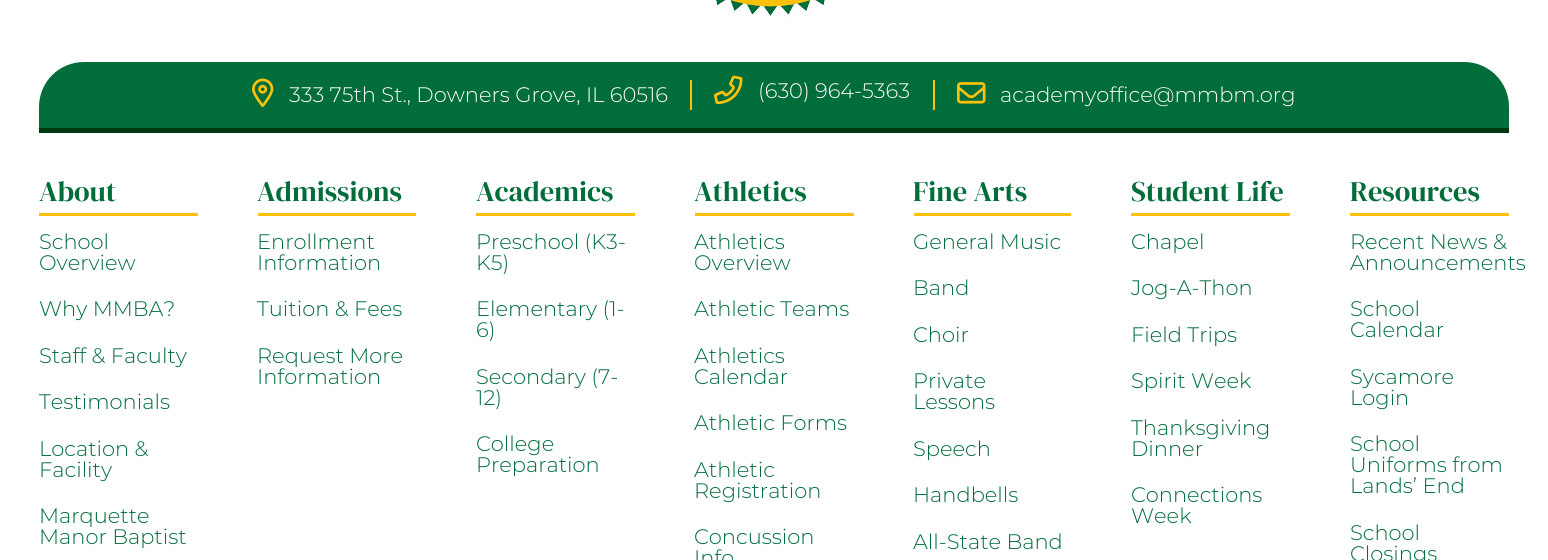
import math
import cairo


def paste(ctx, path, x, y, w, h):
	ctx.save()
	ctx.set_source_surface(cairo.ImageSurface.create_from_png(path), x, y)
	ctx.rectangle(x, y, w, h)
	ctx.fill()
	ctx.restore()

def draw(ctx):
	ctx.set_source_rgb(1, 1, 1)
	ctx.paint()
	ctx.set_source_rgb(0, 0.224, 0.067)
	ctx.rectangle(39, 128, 1470, 5)
	ctx.fill()
	paste(ctx, 'media/1.png', 715, 0, 113, 18)
	ctx.set_source_rgb(0, 0.427, 0.231)
	ctx.new_path()
	ctx.move_to(84, 62)
	ctx.line_to(1464, 62)
	ctx.curve_to(1489, 62, 1509, 82, 1509, 107)
	ctx.line_to(1509, 128)
	ctx.line_to(39, 128)
	ctx.line_to(39, 107)
	ctx.curve_to(39, 82, 59, 62, 84, 62)
	ctx.close_path()
	ctx.fill()
	paste(ctx, 'media/2.png', 252, 78, 22, 29)
	ctx.select_font_face('Montserrat Light')
	ctx.set_font_size(21)
	ctx.set_source_rgb(1, 1, 1)
	ctx.move_to(289, 102)
	ctx.show_text('333 75th St., Downers Grove, IL 60516')
	ctx.set_source_rgb(1, 0.761, 0.039)
	ctx.rectangle(690, 80, 2, 30)
	ctx.fill()
	paste(ctx, 'media/3.png', 714, 75, 29, 30)
	ctx.set_source_rgb(1, 1, 1)
	ctx.move_to(758, 98)
	ctx.show_text('(630) 964-5363')
	ctx.set_source_rgb(1, 0.761, 0.039)
	ctx.rectangle(933, 80, 2, 30)
	ctx.fill()
	paste(ctx, 'media/4.png', 957, 82, 29, 22)
	ctx.set_source_rgb(1, 1, 1)
	ctx.move_to(1000, 102)
	ctx.show_text('academyoffice@mmbm.org')
	ctx.set_source_rgb(1, 0.761, 0.039)
	ctx.rectangle(39, 213, 159, 3)
	ctx.fill()
	ctx.select_font_face('DM Serif Display')
	ctx.set_font_size(28.5)
	ctx.set_source_rgb(0, 0.427, 0.231)
	ctx.move_to(39, 201)
	ctx.show_text('About')
	ctx.select_font_face('Montserrat Light')
	ctx.set_font_size(21)
	for x, y, s in [
		(39, 249, 'School'),
		(39, 270, 'Overview'),
		(39, 316, 'Why MMBA?'),
		(39, 363, 'Staff & Faculty'),
		(39, 409, 'Testimonials'),
		(39, 456, 'Location &'),
		(39, 477, 'Facility'),
		(39, 523, 'Marquette'),
		(39, 544, 'Manor Baptist'),
	]:
		ctx.move_to(x, y)
		ctx.show_text(s)
	ctx.set_source_rgb(1, 0.761, 0.039)
	ctx.rectangle(258, 213, 158, 3)
	ctx.fill()
	ctx.select_font_face('DM Serif Display')
	ctx.set_font_size(28.5)
	ctx.set_source_rgb(0, 0.427, 0.231)
	ctx.move_to(257, 201)
	ctx.show_text('Admissions')
	ctx.select_font_face('Montserrat Light')
	ctx.set_font_size(21)
	for x, y, s in [
		(257, 249, 'Enrollment'),
		(257, 270, 'Information'),
		(257, 316, 'Tuition & Fees'),
		(257, 363, 'Request More'),
		(257, 384, 'Information'),
	]:
		ctx.move_to(x, y)
		ctx.show_text(s)
	ctx.set_source_rgb(1, 0.761, 0.039)
	ctx.rectangle(476, 213, 159, 3)
	ctx.fill()
	ctx.select_font_face('DM Serif Display')
	ctx.set_font_size(28.5)
	ctx.set_source_rgb(0, 0.427, 0.231)
	ctx.move_to(476, 201)
	ctx.show_text('Academics')
	ctx.select_font_face('Montserrat Light')
	ctx.set_font_size(21)
	for x, y, s in [
		(476, 249, 'Preschool (K3-'),
		(476, 270, 'K5)'),
		(476, 316, 'Elementary (1-'),
		(476, 337, '6)'),
		(476, 384, 'Secondary (7-'),
		(476, 405, '12)'),
		(476, 451, 'College'),
		(476, 472, 'Preparation'),
	]:
		ctx.move_to(x, y)
		ctx.show_text(s)
	ctx.set_source_rgb(1, 0.761, 0.039)
	ctx.rectangle(695, 213, 159, 3)
	ctx.fill()
	ctx.select_font_face('DM Serif Display')
	ctx.set_font_size(28.5)
	ctx.set_source_rgb(0, 0.427, 0.231)
	ctx.move_to(694, 201)
	ctx.show_text('Athletics')
	ctx.select_font_face('Montserrat Light')
	ctx.set_font_size(21)
	for x, y, s in [
		(694, 249, 'Athletics'),
		(694, 270, 'Overview'),
		(694, 316, 'Athletic Teams'),
		(694, 363, 'Athletics'),
		(694, 384, 'Calendar'),
		(694, 430, 'Athletic Forms'),
		(694, 477, 'Athletic'),
		(694, 498, 'Registration'),
		(694, 544, 'Concussion'),
		(694, 565, 'Info'),
	]:
		ctx.move_to(x, y)
		ctx.show_text(s)
	ctx.set_source_rgb(1, 0.761, 0.039)
	ctx.rectangle(914, 213, 157, 3)
	ctx.fill()
	ctx.select_font_face('DM Serif Display')
	ctx.set_font_size(28.5)
	ctx.set_source_rgb(0, 0.427, 0.231)
	ctx.move_to(913, 201)
	ctx.show_text('Fine Arts')
	ctx.select_font_face('Montserrat Light')
	ctx.set_font_size(21)
	for x, y, s in [
		(913, 249, 'General Music'),
		(913, 295, 'Band'),
		(913, 342, 'Choir'),
		(913, 388, 'Private'),
		(913, 409, 'Lessons'),
		(913, 456, 'Speech'),
		(913, 502, 'Handbells'),
		(913, 549, 'All-State Band'),
	]:
		ctx.move_to(x, y)
		ctx.show_text(s)
	ctx.set_source_rgb(1, 0.761, 0.039)
	ctx.rectangle(1131, 213, 159, 3)
	ctx.fill()
	ctx.select_font_face('DM Serif Display')
	ctx.set_font_size(28.5)
	ctx.set_source_rgb(0, 0.427, 0.231)
	ctx.move_to(1131, 201)
	ctx.show_text('Student Life')
	ctx.select_font_face('Montserrat Light')
	ctx.set_font_size(21)
	for x, y, s in [
		(1131, 249, 'Chapel'),
		(1131, 295, 'Jog-A-Thon'),
		(1131, 342, 'Field Trips'),
		(1131, 388, 'Spirit Week'),
		(1131, 435, 'Thanksgiving'),
		(1131, 456, 'Dinner'),
		(1131, 502, 'Connections'),
		(1131, 523, 'Week'),
	]:
		ctx.move_to(x, y)
		ctx.show_text(s)
	ctx.set_source_rgb(1, 0.761, 0.039)
	ctx.rectangle(1350, 213, 159, 3)
	ctx.fill()
	ctx.select_font_face('DM Serif Display')
	ctx.set_font_size(28.5)
	ctx.set_source_rgb(0, 0.427, 0.231)
	ctx.move_to(1350, 201)
	ctx.show_text('Resources')
	ctx.select_font_face('Montserrat Light')
	ctx.set_font_size(21)
	for x, y, s in [
		(1350, 249, 'Recent News &'),
		(1350, 270, 'Announcements'),
		(1350, 316, 'School'),
		(1350, 337, 'Calendar'),
		(1350, 384, 'Sycamore'),
		(1350, 405, 'Login'),
		(1350, 451, 'School'),
		(1350, 472, 'Uniforms from'),
		(1350, 493, 'Lands’ End'),
		(1350, 540, 'School'),
		(1350, 561, 'Closings'),
	]:
		ctx.move_to(x, y)
		ctx.show_text(s)


surface = cairo.ImageSurface(cairo.FORMAT_RGB24, 1548, 560)
ctx = cairo.Context(surface)
options = cairo.FontOptions()
options.set_hint_metrics(cairo.HINT_METRICS_OFF)
options.set_hint_style(cairo.HINT_STYLE_NONE)
ctx.set_font_options(options)
ctx.set_miter_limit(4)
draw(ctx)
surface.write_to_png('image.png')
